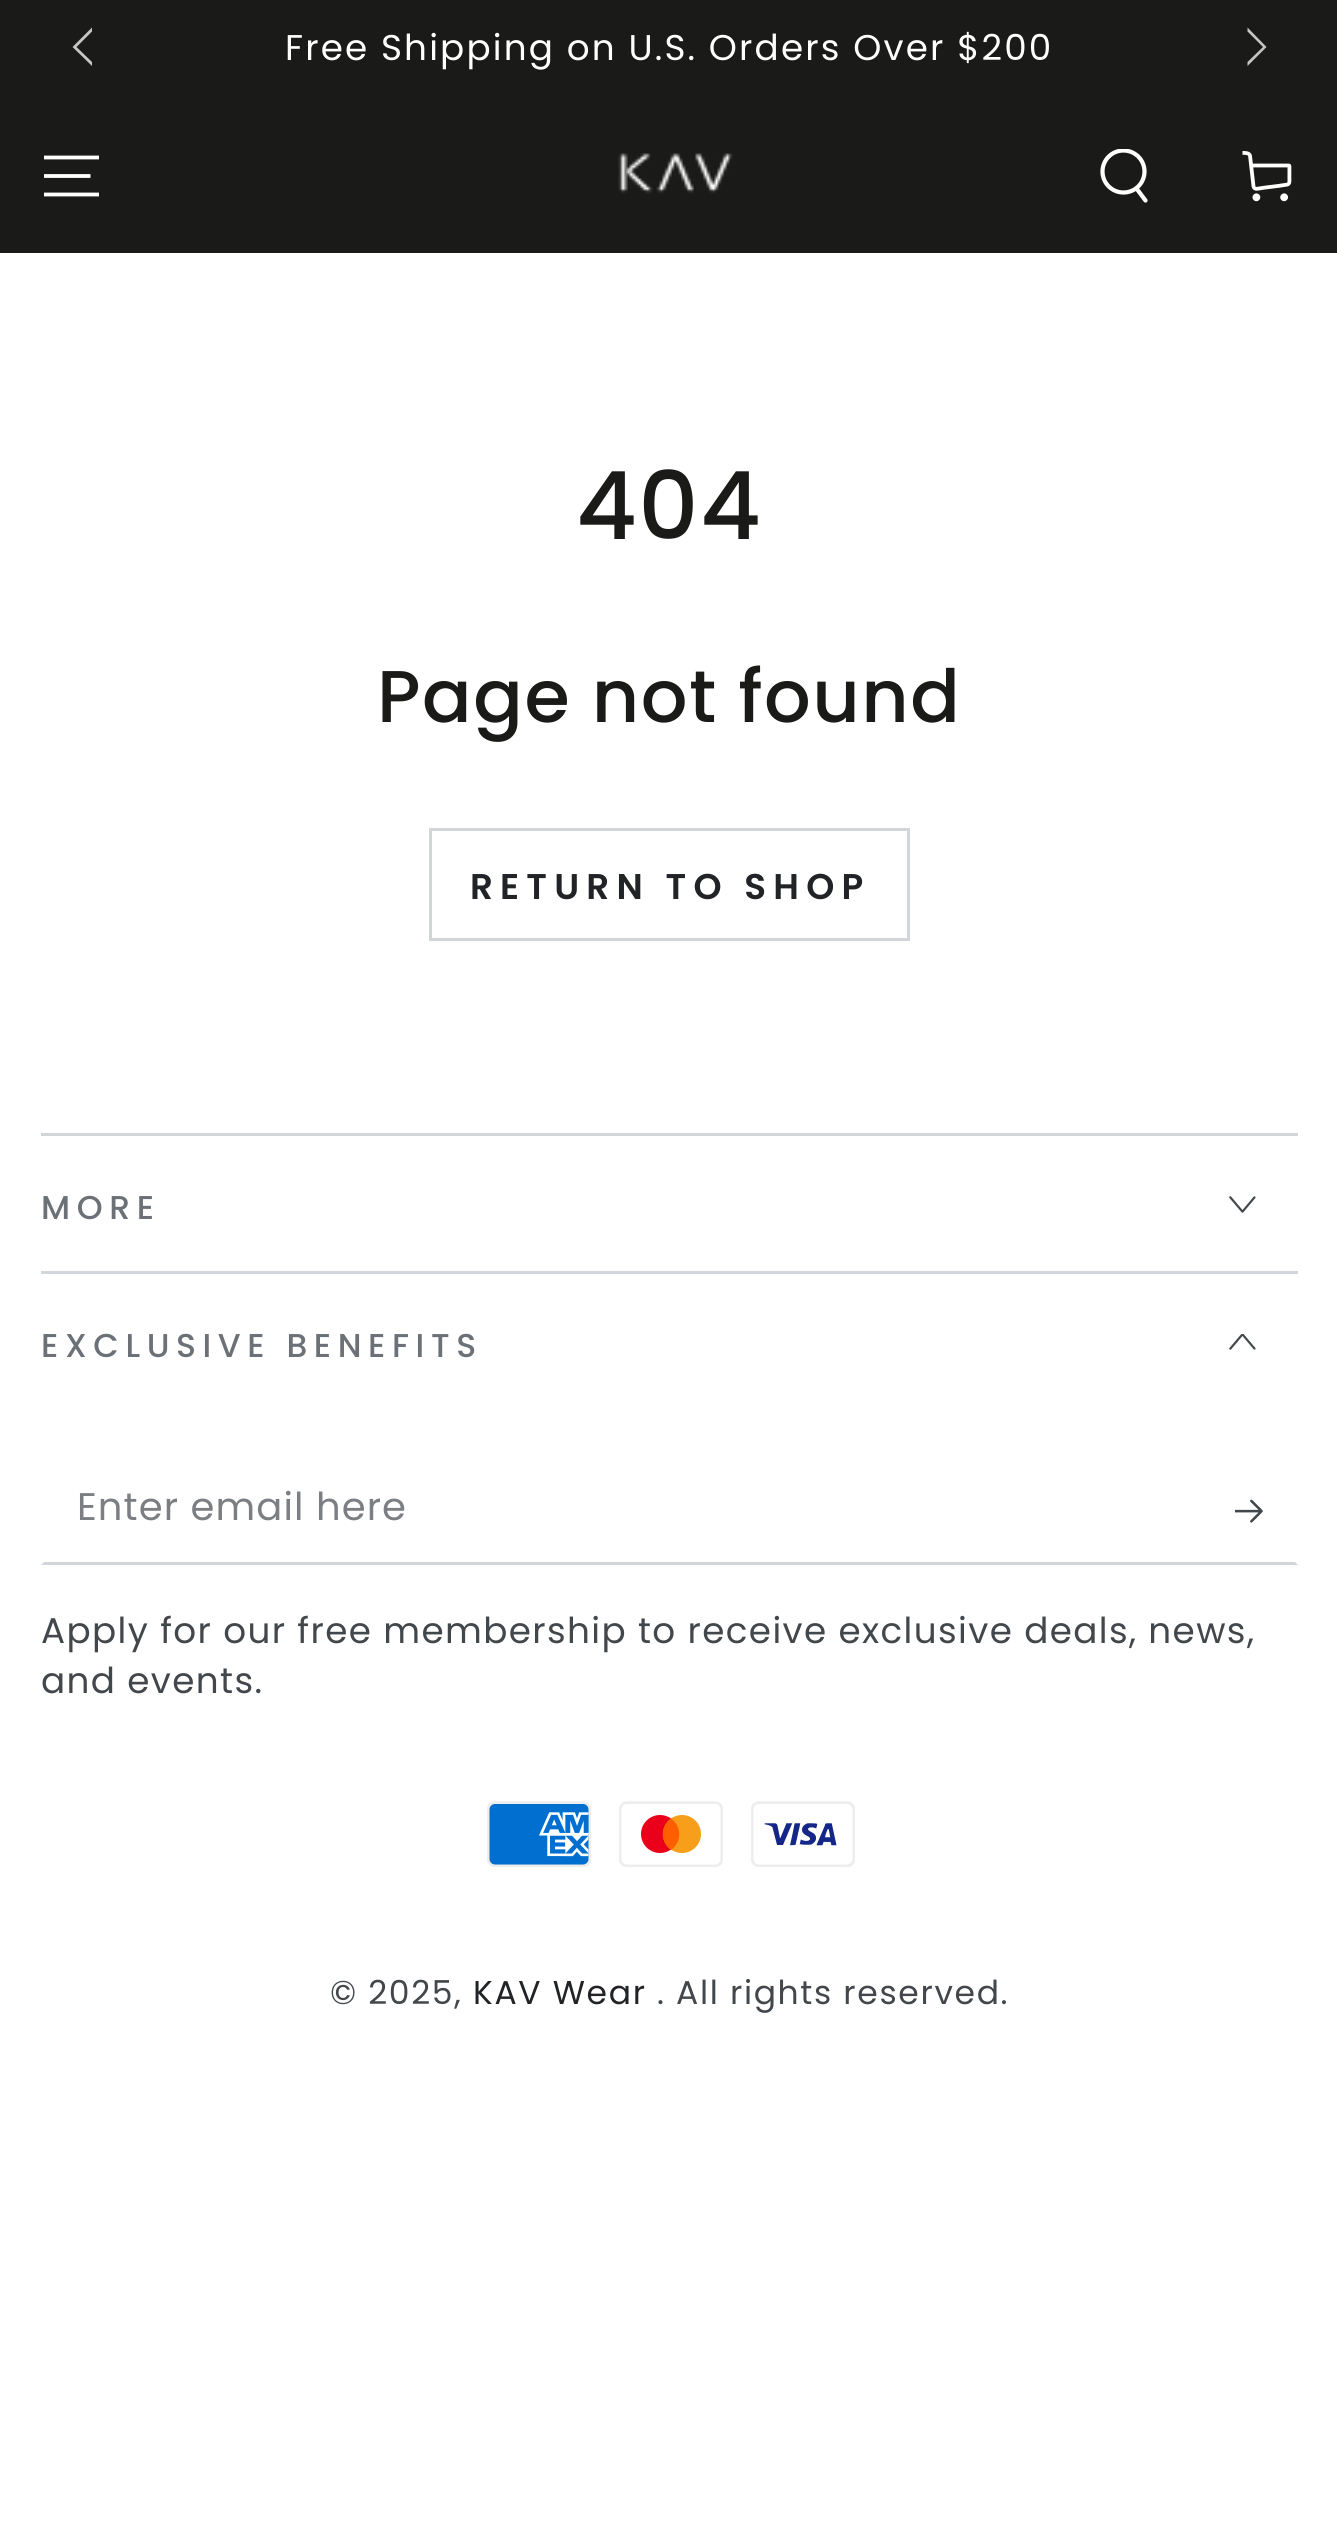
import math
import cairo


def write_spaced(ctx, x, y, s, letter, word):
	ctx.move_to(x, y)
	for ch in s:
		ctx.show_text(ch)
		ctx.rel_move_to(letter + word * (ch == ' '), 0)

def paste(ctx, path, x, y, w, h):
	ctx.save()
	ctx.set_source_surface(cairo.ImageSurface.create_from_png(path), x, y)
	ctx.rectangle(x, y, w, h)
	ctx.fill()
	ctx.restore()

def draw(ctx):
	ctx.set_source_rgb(1, 1, 1)
	ctx.paint()
	ctx.set_source_rgb(0.102, 0.106, 0.094)
	ctx.rectangle(0, 0, 1337, 253)
	ctx.fill()
	ctx.new_path()
	ctx.move_to(44, 194.5)
	ctx.line_to(99, 194.5)
	ctx.move_to(44, 176)
	ctx.line_to(90.5, 176)
	ctx.move_to(44, 157.5)
	ctx.line_to(99, 157.5)
	ctx.set_source_rgb(1, 1, 1)
	ctx.set_line_width(3.8)
	ctx.stroke()
	paste(ctx, 'media/1.png', 618, 153, 115, 41)
	ctx.save()
	ctx.rectangle(1097, 149, 55, 55)
	ctx.clip()
	ctx.arc(1123.5, 171.5, 21, 0, 2 * math.pi)
	ctx.set_line_width(4.2)
	ctx.stroke()
	ctx.restore()
	ctx.new_path()
	ctx.move_to(1136.5, 188.5)
	ctx.line_to(1145.5, 200.5)
	ctx.set_line_width(4.2)
	ctx.set_line_cap(cairo.LINE_CAP_ROUND)
	ctx.stroke()
	paste(ctx, 'media/2.png', 1242, 151, 50, 51)
	ctx.set_source_rgb(0.776, 0.776, 0.773)
	ctx.set_fill_rule(cairo.FILL_RULE_EVEN_ODD)
	ctx.new_path()
	ctx.move_to(72.5, 47)
	ctx.line_to(92, 66)
	ctx.line_to(92, 62)
	ctx.line_to(76.5, 47)
	ctx.line_to(92, 31.5)
	ctx.line_to(92, 27.5)
	ctx.close_path()
	ctx.fill()
	ctx.new_path()
	ctx.move_to(1266.5, 47)
	ctx.line_to(1247.5, 66)
	ctx.line_to(1247.5, 62)
	ctx.line_to(1263, 47)
	ctx.line_to(1247.5, 31.5)
	ctx.line_to(1247.5, 27.5)
	ctx.close_path()
	ctx.fill()
	ctx.select_font_face('Poppins')
	ctx.set_font_size(35.75)
	ctx.set_source_rgb(1, 1, 1)
	write_spaced(ctx, 285, 60, 'Free Shipping on U.S. Orders Over $200', 2.15, 0)
	ctx.select_font_face('Poppins Medium')
	ctx.set_font_size(94)
	ctx.set_source_rgb(0.102, 0.106, 0.094)
	write_spaced(ctx, 576, 539, '404', 1.5, 0)
	ctx.set_font_size(73.25)
	write_spaced(ctx, 377, 722, 'Page not found', 1.5, 0)
	ctx.rectangle(430.5, 829.5, 478, 110)
	ctx.set_source_rgb(0.824, 0.835, 0.851)
	ctx.set_line_width(3)
	ctx.set_line_cap(cairo.LINE_CAP_BUTT)
	ctx.stroke()
	ctx.select_font_face('Poppins SemiBold')
	ctx.set_font_size(35.75)
	ctx.set_source_rgb(0.129, 0.137, 0.149)
	write_spaced(ctx, 470, 899, 'RETURN TO SHOP', 7.2, 0)
	ctx.set_source_rgb(0.824, 0.835, 0.851)
	ctx.rectangle(41, 1133, 1257, 3)
	ctx.fill()
	ctx.rectangle(41, 1271, 1257, 3)
	ctx.fill()
	ctx.select_font_face('Poppins Medium')
	ctx.set_font_size(33)
	ctx.set_source_rgb(0.42, 0.443, 0.467)
	write_spaced(ctx, 41, 1219, 'MORE', 6.6, 0)
	paste(ctx, 'media/3.png', 1229, 1196, 27, 17)
	write_spaced(ctx, 41, 1357, 'EXCLUSIVE BENEFITS', 6.6, 0)
	paste(ctx, 'media/4.png', 1229, 1334, 27, 16)
	ctx.set_source_rgb(0.824, 0.835, 0.851)
	ctx.set_fill_rule(cairo.FILL_RULE_WINDING)
	ctx.new_path()
	ctx.move_to(1298, 1565)
	ctx.line_to(41, 1565)
	ctx.line_to(44, 1562)
	ctx.line_to(1295, 1562)
	ctx.close_path()
	ctx.fill()
	ctx.select_font_face('Poppins')
	ctx.set_font_size(38.5)
	ctx.set_source_rgb(0.482, 0.494, 0.51)
	write_spaced(ctx, 77, 1520, 'Enter email here', 1.1, 0)
	paste(ctx, 'media/5.png', 1235, 1499, 28, 24)
	ctx.set_font_size(35.75)
	ctx.set_source_rgb(0.259, 0.278, 0.298)
	write_spaced(ctx, 41, 1643, 'Apply for our free membership to receive exclusive deals, news,', 1.38, 0)
	write_spaced(ctx, 41, 1693, 'and events.', 1.38, 0)
	paste(ctx, 'media/6.png', 487, 1801, 104, 66)
	paste(ctx, 'media/7.png', 619, 1801, 104, 66)
	paste(ctx, 'media/8.png', 751, 1801, 104, 66)
	ctx.set_font_size(33)
	write_spaced(ctx, 330, 2004, '© 2025,', 1.65, 0)
	ctx.set_source_rgb(0.129, 0.137, 0.149)
	write_spaced(ctx, 473, 2004, 'KAV Wear', 1.65, 0)
	ctx.set_source_rgb(0.259, 0.278, 0.298)
	write_spaced(ctx, 657, 2004, '. All rights reserved.', 1.65, 0)


surface = cairo.ImageSurface(cairo.FORMAT_RGB24, 1337, 2543)
ctx = cairo.Context(surface)
options = cairo.FontOptions()
options.set_hint_metrics(cairo.HINT_METRICS_OFF)
options.set_hint_style(cairo.HINT_STYLE_NONE)
ctx.set_font_options(options)
ctx.set_miter_limit(4)
draw(ctx)
surface.write_to_png('image.png')
